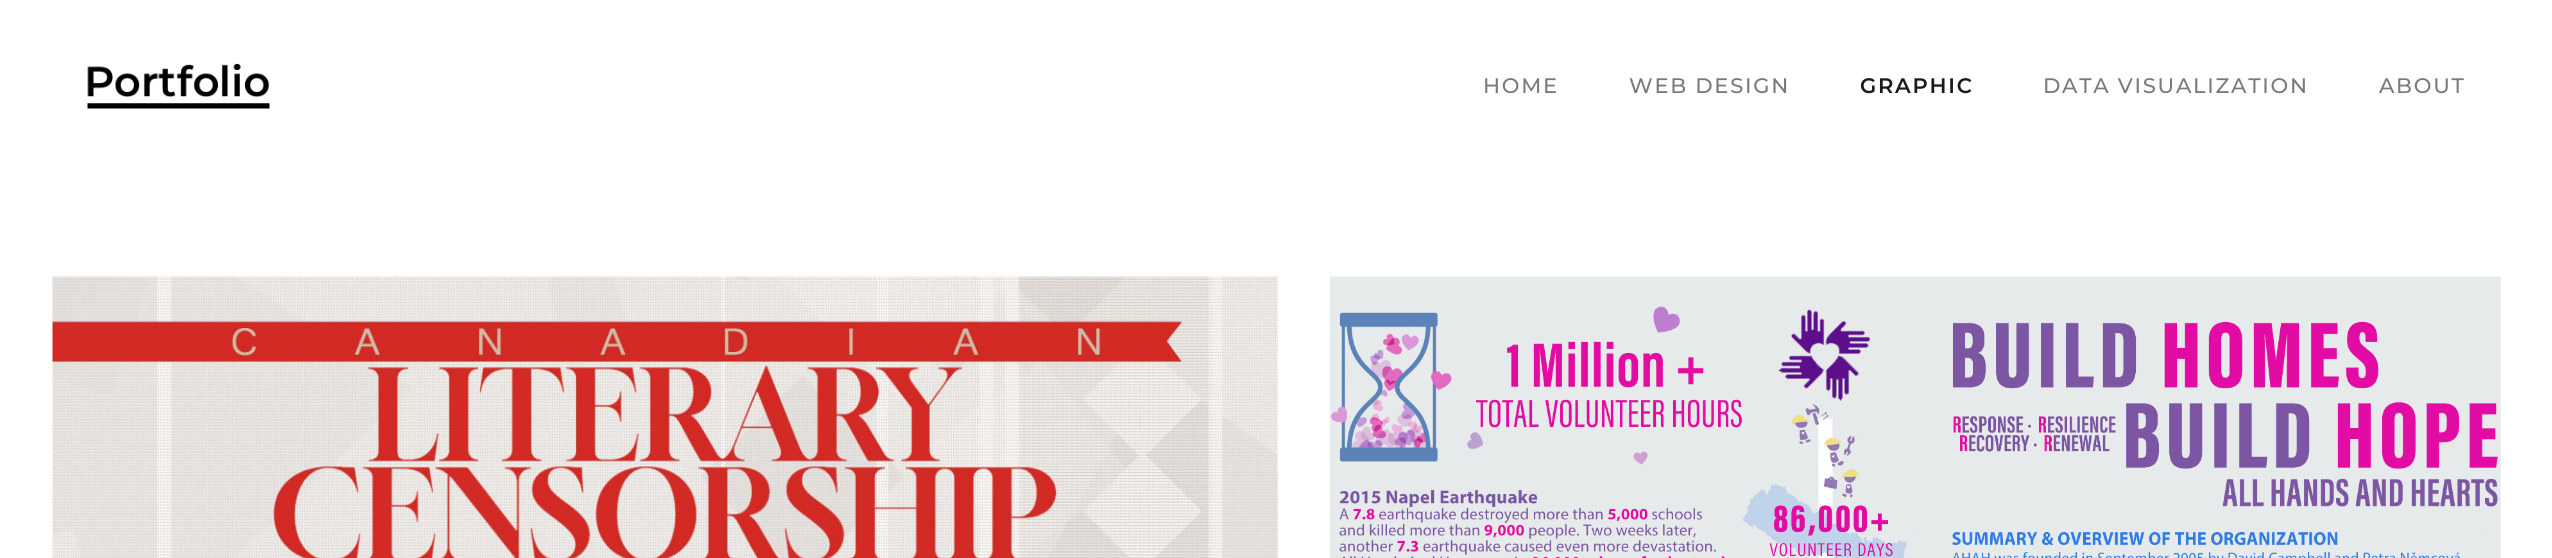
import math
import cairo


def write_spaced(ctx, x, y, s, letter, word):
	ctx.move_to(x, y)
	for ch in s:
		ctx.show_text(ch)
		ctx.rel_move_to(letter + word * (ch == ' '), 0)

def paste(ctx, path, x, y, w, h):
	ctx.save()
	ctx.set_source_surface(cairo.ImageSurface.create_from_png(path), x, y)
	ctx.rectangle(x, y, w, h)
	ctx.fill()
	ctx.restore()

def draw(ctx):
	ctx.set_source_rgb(1, 1, 1)
	ctx.paint()
	paste(ctx, 'media/1.png', 87, 63, 183, 46)
	ctx.select_font_face('Montserrat Medium')
	ctx.set_font_size(21)
	ctx.set_source_rgb(0.478, 0.478, 0.478)
	write_spaced(ctx, 1483, 93, 'HOME', 1.75, 0)
	write_spaced(ctx, 1629, 93, 'WEB DESIGN', 1.75, 0)
	ctx.select_font_face('Montserrat SemiBold')
	ctx.set_source_rgb(0.102, 0.106, 0.122)
	write_spaced(ctx, 1860, 93, 'GRAPHIC', 1.75, 0)
	ctx.select_font_face('Montserrat Medium')
	ctx.set_source_rgb(0.478, 0.478, 0.478)
	write_spaced(ctx, 2043, 93, 'DATA VISUALIZATION', 1.75, 0)
	write_spaced(ctx, 2379, 93, 'ABOUT', 1.75, 0)
	ctx.set_source_rgb(0.957, 0.957, 0.957)
	ctx.rectangle(1277, 277, 1, 281)
	ctx.fill()
	paste(ctx, 'media/2.png', 52, 276, 1226, 282)
	paste(ctx, 'media/3.png', 1330, 276, 1171, 282)


surface = cairo.ImageSurface(cairo.FORMAT_RGB24, 2552, 558)
ctx = cairo.Context(surface)
options = cairo.FontOptions()
options.set_hint_metrics(cairo.HINT_METRICS_OFF)
options.set_hint_style(cairo.HINT_STYLE_NONE)
ctx.set_font_options(options)
ctx.set_miter_limit(4)
draw(ctx)
surface.write_to_png('image.png')
